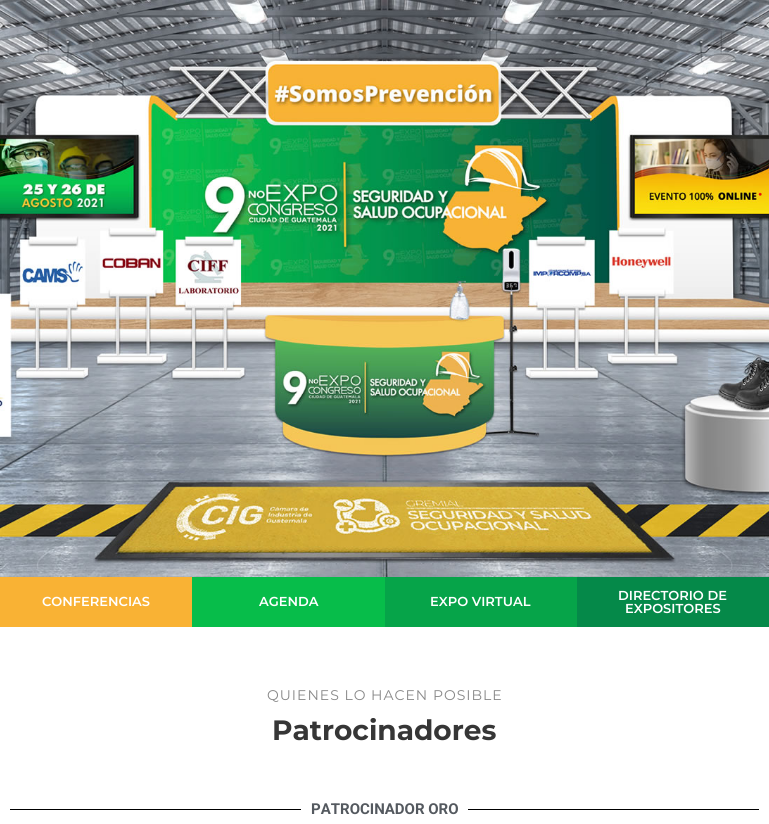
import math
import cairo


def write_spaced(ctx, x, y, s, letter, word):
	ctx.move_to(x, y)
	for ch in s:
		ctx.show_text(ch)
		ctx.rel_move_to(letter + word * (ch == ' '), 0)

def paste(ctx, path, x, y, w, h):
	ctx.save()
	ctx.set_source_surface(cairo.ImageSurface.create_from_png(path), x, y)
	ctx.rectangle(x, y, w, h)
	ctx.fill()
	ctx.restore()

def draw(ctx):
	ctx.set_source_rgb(1, 1, 1)
	ctx.paint()
	paste(ctx, 'media/1.png', 0, 0, 769, 577)
	ctx.set_source_rgb(0.976, 0.698, 0.204)
	ctx.rectangle(0, 577, 192, 50)
	ctx.fill()
	ctx.select_font_face('Montserrat SemiBold')
	ctx.set_font_size(13)
	ctx.set_source_rgb(1, 1, 1)
	ctx.move_to(42, 606)
	ctx.show_text('CONFERENCIAS')
	ctx.set_source_rgb(0.031, 0.741, 0.29)
	ctx.rectangle(192, 577, 193, 50)
	ctx.fill()
	ctx.set_source_rgb(1, 1, 1)
	ctx.move_to(259, 606)
	ctx.show_text('AGENDA')
	ctx.set_source_rgb(0.024, 0.643, 0.286)
	ctx.rectangle(385, 577, 192, 50)
	ctx.fill()
	ctx.set_source_rgb(1, 1, 1)
	ctx.move_to(430, 606)
	ctx.show_text('EXPO VIRTUAL')
	ctx.set_source_rgb(0.02, 0.537, 0.286)
	ctx.rectangle(577, 577, 192, 50)
	ctx.fill()
	ctx.set_source_rgb(1, 1, 1)
	ctx.move_to(618, 600)
	ctx.show_text('DIRECTORIO DE')
	ctx.move_to(625, 613)
	ctx.show_text('EXPOSITORES')
	ctx.select_font_face('Montserrat')
	ctx.set_font_size(14)
	ctx.set_source_rgb(0.533, 0.533, 0.533)
	write_spaced(ctx, 267, 700, 'QUIENES LO HACEN POSIBLE', 1, 0)
	ctx.select_font_face('Montserrat', cairo.FONT_SLANT_NORMAL, cairo.FONT_WEIGHT_BOLD)
	ctx.set_font_size(28)
	ctx.set_source_rgb(0.212, 0.212, 0.212)
	ctx.move_to(272, 740)
	ctx.show_text('Patrocinadores')
	ctx.set_source_rgb(0, 0, 0)
	ctx.rectangle(10, 809, 291, 1)
	ctx.fill()
	ctx.select_font_face('Roboto', cairo.FONT_SLANT_NORMAL, cairo.FONT_WEIGHT_BOLD)
	ctx.set_font_size(15)
	ctx.set_source_rgb(0.329, 0.349, 0.373)
	ctx.move_to(311, 814)
	ctx.show_text('PATROCINADOR ORO')
	ctx.set_source_rgb(0, 0, 0)
	ctx.rectangle(468, 809, 291, 1)
	ctx.fill()


surface = cairo.ImageSurface(cairo.FORMAT_RGB24, 769, 824)
ctx = cairo.Context(surface)
options = cairo.FontOptions()
options.set_hint_metrics(cairo.HINT_METRICS_OFF)
options.set_hint_style(cairo.HINT_STYLE_NONE)
ctx.set_font_options(options)
ctx.set_miter_limit(4)
draw(ctx)
surface.write_to_png('image.png')
